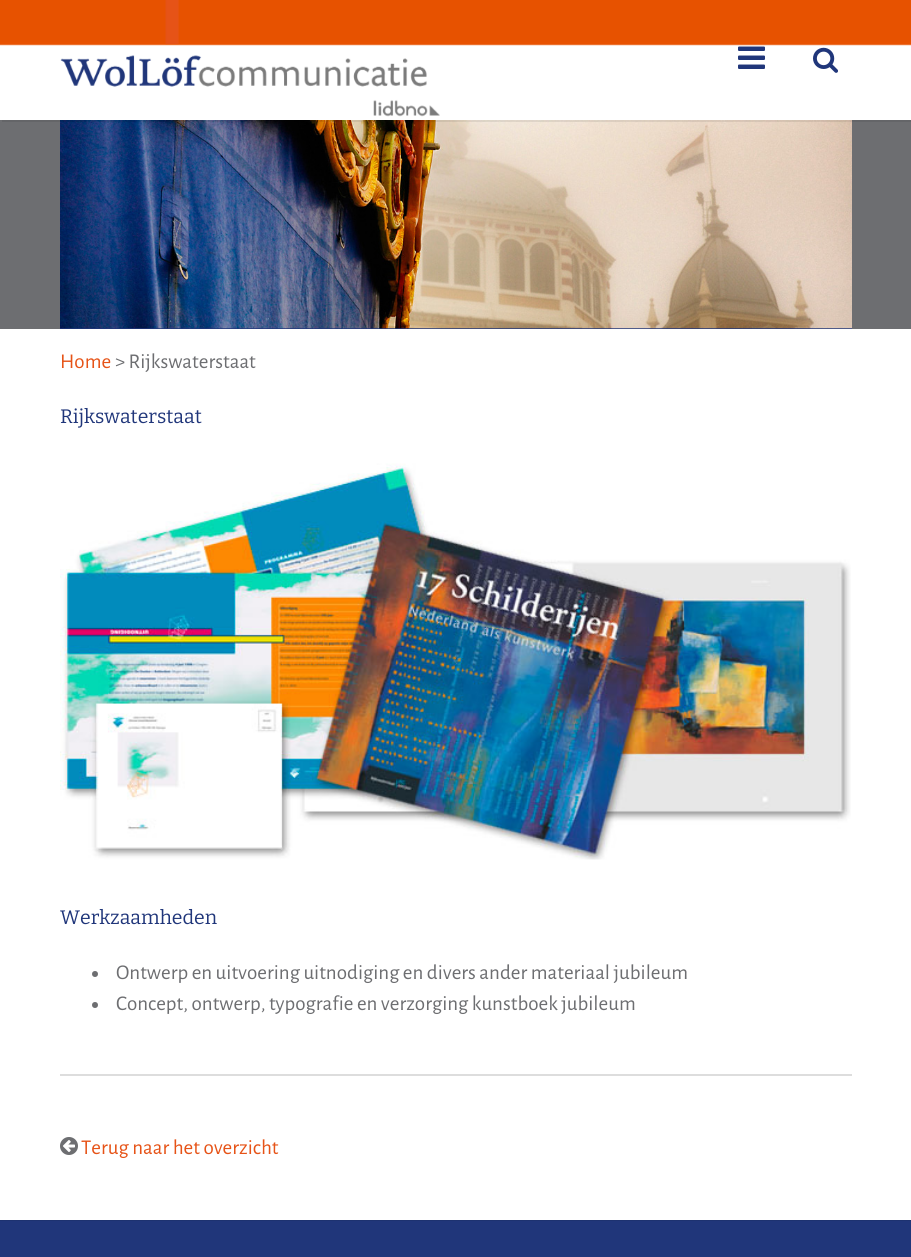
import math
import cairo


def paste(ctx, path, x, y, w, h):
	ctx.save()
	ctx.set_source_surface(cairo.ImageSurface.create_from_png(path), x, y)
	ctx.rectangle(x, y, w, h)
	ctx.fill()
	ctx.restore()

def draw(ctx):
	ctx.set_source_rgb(1, 1, 1)
	ctx.paint()
	ctx.set_source_rgb(0.427, 0.431, 0.443)
	ctx.rectangle(0, 120, 911, 209)
	ctx.fill()
	ctx.set_source_rgb(0.125, 0.212, 0.478)
	ctx.rectangle(60, 328, 792, 1)
	ctx.fill()
	paste(ctx, 'media/5.png', 60, 120, 792, 209)
	ctx.set_source_rgba(0, 0, 0, 0.08)
	ctx.rectangle(2, 120, 909, 2)
	ctx.fill()
	paste(ctx, 'media/1.png', 0, 0, 911, 120)
	paste(ctx, 'media/2.png', 60, 0, 380, 117)
	paste(ctx, 'media/3.png', 738, 46, 27, 23)
	paste(ctx, 'media/4.png', 813, 47, 25, 26)
	ctx.set_source_rgb(0.114, 0.196, 0.439)
	ctx.rectangle(0, 1220, 911, 1)
	ctx.fill()
	ctx.select_font_face('Alegreya Sans')
	ctx.set_font_size(21)
	ctx.set_source_rgb(0.902, 0.325, 0.09)
	ctx.move_to(60, 368)
	ctx.show_text('Home')
	ctx.set_source_rgb(0.427, 0.431, 0.443)
	ctx.move_to(115, 368)
	ctx.show_text('> Rijkswaterstaat')
	ctx.select_font_face('Bitter')
	ctx.set_font_size(19.5)
	ctx.set_source_rgb(0.125, 0.212, 0.478)
	ctx.move_to(60, 423)
	ctx.show_text('Rijkswaterstaat')
	paste(ctx, 'media/6.png', 60, 463, 791, 397)
	ctx.move_to(60, 924)
	ctx.show_text('Werkzaamheden')
	ctx.set_source_rgb(0.427, 0.431, 0.443)
	ctx.new_path()
	ctx.arc(95, 974, 3, 0, 2 * math.pi)
	ctx.fill()
	ctx.select_font_face('Alegreya Sans')
	ctx.set_font_size(21)
	ctx.move_to(116, 979)
	ctx.show_text('Ontwerp en uitvoering uitnodiging en divers ander materiaal jubileum')
	ctx.new_path()
	ctx.arc(95, 1005, 3, 0, 2 * math.pi)
	ctx.fill()
	ctx.move_to(116, 1010)
	ctx.show_text('Concept, ontwerp, typografie en verzorging kunstboek jubileum')
	ctx.set_source_rgb(0.867, 0.867, 0.867)
	ctx.rectangle(60, 1074, 792, 2)
	ctx.fill()
	paste(ctx, 'media/7.png', 60, 1137, 18, 18)
	ctx.set_source_rgb(0.902, 0.325, 0.09)
	ctx.move_to(81, 1154)
	ctx.show_text('Terug naar het overzicht')
	ctx.set_source_rgb(0.125, 0.212, 0.478)
	ctx.rectangle(0, 1221, 911, 36)
	ctx.fill()


surface = cairo.ImageSurface(cairo.FORMAT_RGB24, 911, 1257)
ctx = cairo.Context(surface)
options = cairo.FontOptions()
options.set_hint_metrics(cairo.HINT_METRICS_OFF)
options.set_hint_style(cairo.HINT_STYLE_NONE)
ctx.set_font_options(options)
ctx.set_miter_limit(4)
draw(ctx)
surface.write_to_png('image.png')
